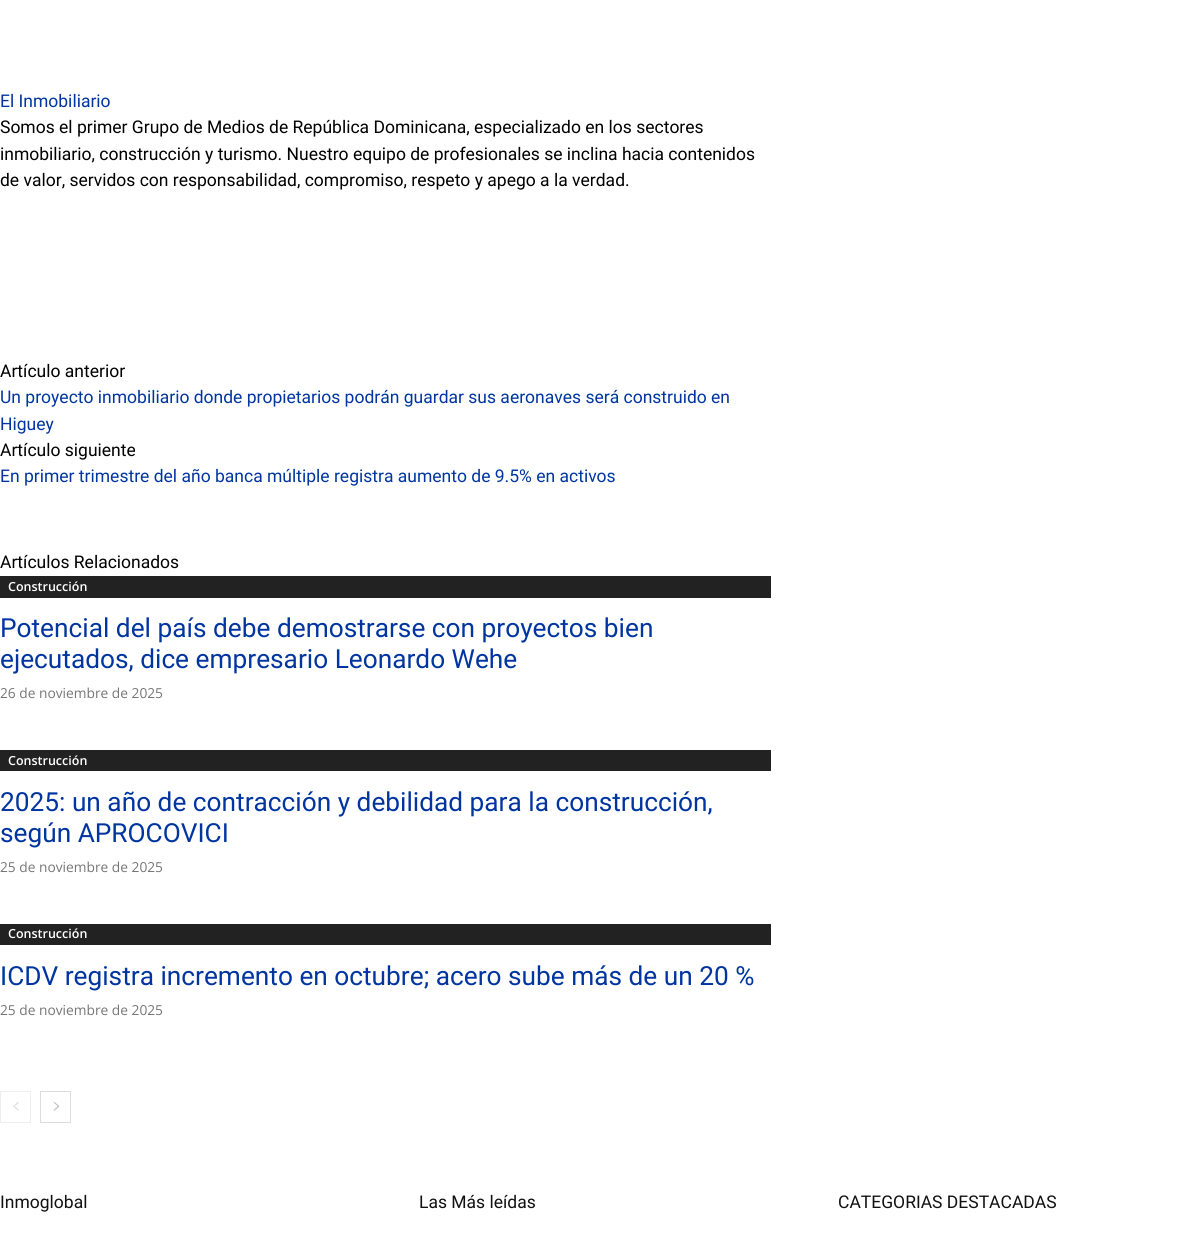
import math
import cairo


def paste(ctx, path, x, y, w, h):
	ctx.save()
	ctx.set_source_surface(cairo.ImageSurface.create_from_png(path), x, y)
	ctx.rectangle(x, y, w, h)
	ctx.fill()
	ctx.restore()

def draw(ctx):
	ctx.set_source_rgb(1, 1, 1)
	ctx.paint()
	ctx.select_font_face('Roboto')
	ctx.set_font_size(17.5)
	ctx.set_source_rgb(0, 0.208, 0.627)
	ctx.move_to(0, 107)
	ctx.show_text('El Inmobiliario')
	ctx.set_source_rgb(0, 0, 0)
	for x, y, s in [
		(0, 133, 'Somos el primer Grupo de Medios de República Dominicana, especializado en los sectores'),
		(0, 160, 'inmobiliario, construcción y turismo. Nuestro equipo de profesionales se inclina hacia contenidos'),
		(0, 186, 'de valor, servidos con responsabilidad, compromiso, respeto y apego a la verdad.'),
		(0, 377, 'Artículo anterior'),
	]:
		ctx.move_to(x, y)
		ctx.show_text(s)
	ctx.set_source_rgb(0, 0.208, 0.627)
	ctx.move_to(0, 403)
	ctx.show_text('Un proyecto inmobiliario donde propietarios podrán guardar sus aeronaves será construido en')
	ctx.move_to(0, 430)
	ctx.show_text('Higuey')
	ctx.set_source_rgb(0, 0, 0)
	ctx.move_to(0, 456)
	ctx.show_text('Artículo siguiente')
	ctx.set_source_rgb(0, 0.208, 0.627)
	ctx.move_to(0, 482)
	ctx.show_text('En primer trimestre del año banca múltiple registra aumento de 9.5% en activos')
	ctx.set_source_rgb(0, 0, 0)
	ctx.move_to(0, 568)
	ctx.show_text('Artículos Relacionados')
	ctx.set_source_rgb(0.133, 0.133, 0.133)
	ctx.rectangle(0, 576, 771, 22)
	ctx.fill()
	ctx.select_font_face('Open Sans SemiBold')
	ctx.set_font_size(12.5)
	ctx.set_source_rgb(1, 1, 1)
	ctx.move_to(8, 591)
	ctx.show_text('Construcción')
	ctx.select_font_face('Roboto')
	ctx.set_font_size(26.25)
	ctx.set_source_rgb(0, 0.208, 0.627)
	ctx.move_to(0, 637)
	ctx.show_text('Potencial del país debe demostrarse con proyectos bien')
	ctx.move_to(0, 668)
	ctx.show_text('ejecutados, dice empresario Leonardo Wehe')
	ctx.select_font_face('Open Sans')
	ctx.set_font_size(13.75)
	ctx.set_source_rgb(0.463, 0.463, 0.463)
	ctx.move_to(0, 698)
	ctx.show_text('26 de noviembre de 2025')
	ctx.set_source_rgb(0.133, 0.133, 0.133)
	ctx.rectangle(0, 750, 771, 21)
	ctx.fill()
	ctx.select_font_face('Open Sans SemiBold')
	ctx.set_font_size(12.5)
	ctx.set_source_rgb(1, 1, 1)
	ctx.move_to(8, 765)
	ctx.show_text('Construcción')
	ctx.select_font_face('Roboto')
	ctx.set_font_size(26.25)
	ctx.set_source_rgb(0, 0.208, 0.627)
	ctx.move_to(0, 811)
	ctx.show_text('2025: un año de contracción y debilidad para la construcción,')
	ctx.move_to(0, 842)
	ctx.show_text('según APROCOVICI')
	ctx.select_font_face('Open Sans')
	ctx.set_font_size(13.75)
	ctx.set_source_rgb(0.463, 0.463, 0.463)
	ctx.move_to(0, 872)
	ctx.show_text('25 de noviembre de 2025')
	ctx.set_source_rgb(0.133, 0.133, 0.133)
	ctx.rectangle(0, 924, 771, 21)
	ctx.fill()
	ctx.select_font_face('Open Sans SemiBold')
	ctx.set_font_size(12.5)
	ctx.set_source_rgb(1, 1, 1)
	ctx.move_to(8, 938)
	ctx.show_text('Construcción')
	ctx.select_font_face('Roboto')
	ctx.set_font_size(26.25)
	ctx.set_source_rgb(0, 0.208, 0.627)
	ctx.move_to(0, 985)
	ctx.show_text('ICDV registra incremento en octubre; acero sube más de un 20 %')
	ctx.select_font_face('Open Sans')
	ctx.set_font_size(13.75)
	ctx.set_source_rgb(0.463, 0.463, 0.463)
	ctx.move_to(0, 1015)
	ctx.show_text('25 de noviembre de 2025')
	ctx.rectangle(0.5, 1091.5, 30, 31)
	ctx.set_source_rgb(0.933, 0.933, 0.933)
	ctx.set_line_width(1)
	ctx.stroke()
	paste(ctx, 'media/1.png', 13, 1102, 6, 9)
	ctx.rectangle(40.5, 1091.5, 30, 31)
	ctx.set_source_rgb(0.863, 0.863, 0.863)
	ctx.stroke()
	paste(ctx, 'media/2.png', 53, 1102, 7, 9)
	ctx.select_font_face('Roboto')
	ctx.set_font_size(17.5)
	ctx.set_source_rgb(0.067, 0.067, 0.067)
	for x, y, s in [
		(0, 1208, 'Inmoglobal'),
		(419, 1208, 'Las Más leídas'),
		(838, 1208, 'CATEGORIAS DESTACADAS'),
	]:
		ctx.move_to(x, y)
		ctx.show_text(s)


surface = cairo.ImageSurface(cairo.FORMAT_RGB24, 1196, 1241)
ctx = cairo.Context(surface)
options = cairo.FontOptions()
options.set_hint_metrics(cairo.HINT_METRICS_OFF)
options.set_hint_style(cairo.HINT_STYLE_NONE)
ctx.set_font_options(options)
ctx.set_miter_limit(4)
draw(ctx)
surface.write_to_png('image.png')
